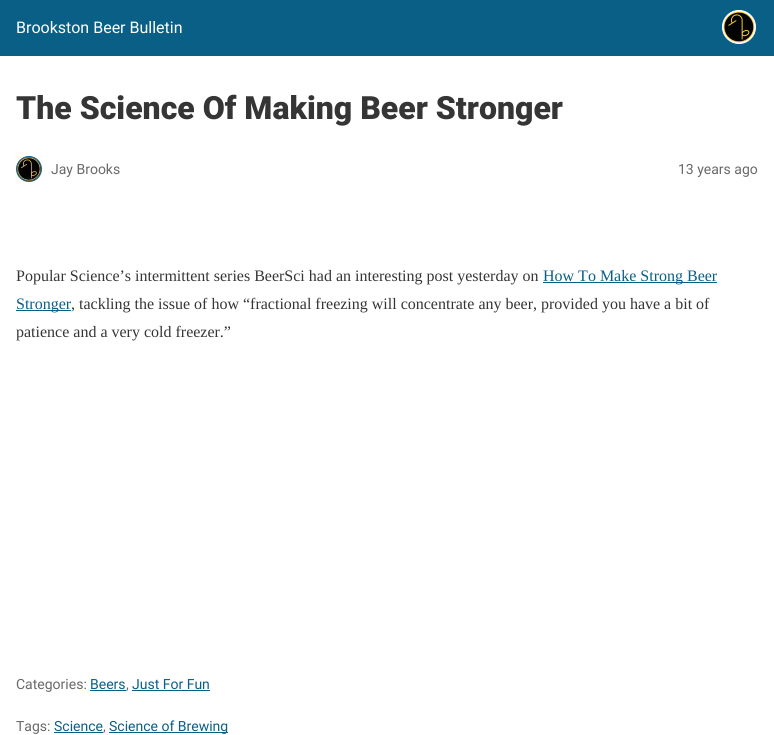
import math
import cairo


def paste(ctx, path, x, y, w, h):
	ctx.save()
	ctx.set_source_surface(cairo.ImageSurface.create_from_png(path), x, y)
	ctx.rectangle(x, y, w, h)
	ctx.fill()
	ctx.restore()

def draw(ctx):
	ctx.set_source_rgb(1, 1, 1)
	ctx.paint()
	ctx.set_source_rgb(0.039, 0.373, 0.522)
	ctx.rectangle(0, 0, 774, 56)
	ctx.fill()
	ctx.select_font_face('Roboto')
	ctx.set_font_size(16)
	ctx.set_source_rgb(1, 1, 1)
	ctx.move_to(16, 33)
	ctx.show_text('Brookston Beer Bulletin')
	ctx.new_path()
	ctx.arc(739, 27, 16.5, 0, 2 * math.pi)
	ctx.fill_preserve()
	ctx.set_line_width(1)
	ctx.stroke()
	paste(ctx, 'media/1.png', 723, 11, 32, 32)
	ctx.select_font_face('Roboto Black')
	ctx.set_font_size(32)
	ctx.set_source_rgb(0.208, 0.208, 0.208)
	ctx.move_to(16, 119)
	ctx.show_text('The Science Of Making Beer Stronger')
	ctx.new_path()
	ctx.arc(29, 169, 12.5, 0, 2 * math.pi)
	ctx.set_source_rgb(0.039, 0.373, 0.522)
	ctx.stroke()
	paste(ctx, 'media/2.png', 17, 157, 24, 24)
	ctx.select_font_face('Roboto')
	ctx.set_font_size(14)
	ctx.set_source_rgb(0.412, 0.412, 0.412)
	ctx.move_to(51, 174)
	ctx.show_text('Jay Brooks')
	ctx.move_to(678, 174)
	ctx.show_text('13 years ago')
	ctx.select_font_face('Liberation Serif')
	ctx.set_font_size(16)
	ctx.set_source_rgb(0.208, 0.208, 0.208)
	ctx.move_to(16, 281)
	ctx.show_text('Popular Science’s intermittent series BeerSci had an interesting post yesterday on')
	ctx.set_source_rgb(0.039, 0.373, 0.522)
	ctx.rectangle(543, 282, 174, 1)
	ctx.fill()
	ctx.move_to(543, 281)
	ctx.show_text('How To Make Strong Beer')
	ctx.rectangle(16, 310, 55, 1)
	ctx.fill()
	ctx.move_to(16, 309)
	ctx.show_text('Stronger')
	ctx.set_source_rgb(0.208, 0.208, 0.208)
	ctx.move_to(71, 309)
	ctx.show_text(', tackling the issue of how “fractional freezing will concentrate any beer, provided you have a bit of')
	ctx.move_to(16, 337)
	ctx.show_text('patience and a very cold freezer.”')
	ctx.select_font_face('Roboto')
	ctx.set_font_size(14)
	ctx.set_source_rgb(0.412, 0.412, 0.412)
	ctx.move_to(16, 689)
	ctx.show_text('Categories:')
	ctx.set_source_rgb(0.039, 0.373, 0.522)
	ctx.move_to(90, 689)
	ctx.show_text('Beers')
	ctx.rectangle(90, 690, 36, 1)
	ctx.fill()
	ctx.set_source_rgb(0.412, 0.412, 0.412)
	ctx.move_to(126, 689)
	ctx.show_text(',')
	ctx.set_source_rgb(0.039, 0.373, 0.522)
	ctx.move_to(132, 689)
	ctx.show_text('Just For Fun')
	ctx.rectangle(132, 690, 78, 1)
	ctx.fill()
	ctx.set_source_rgb(0.412, 0.412, 0.412)
	ctx.move_to(16, 731)
	ctx.show_text('Tags:')
	ctx.set_source_rgb(0.039, 0.373, 0.522)
	ctx.move_to(54, 731)
	ctx.show_text('Science')
	ctx.rectangle(54, 732, 49, 1)
	ctx.fill()
	ctx.set_source_rgb(0.412, 0.412, 0.412)
	ctx.move_to(103, 731)
	ctx.show_text(',')
	ctx.set_source_rgb(0.039, 0.373, 0.522)
	ctx.rectangle(109, 732, 119, 1)
	ctx.fill()
	ctx.move_to(109, 731)
	ctx.show_text('Science of Brewing')


surface = cairo.ImageSurface(cairo.FORMAT_RGB24, 774, 735)
ctx = cairo.Context(surface)
options = cairo.FontOptions()
options.set_hint_metrics(cairo.HINT_METRICS_OFF)
options.set_hint_style(cairo.HINT_STYLE_NONE)
ctx.set_font_options(options)
ctx.set_miter_limit(4)
draw(ctx)
surface.write_to_png('image.png')
